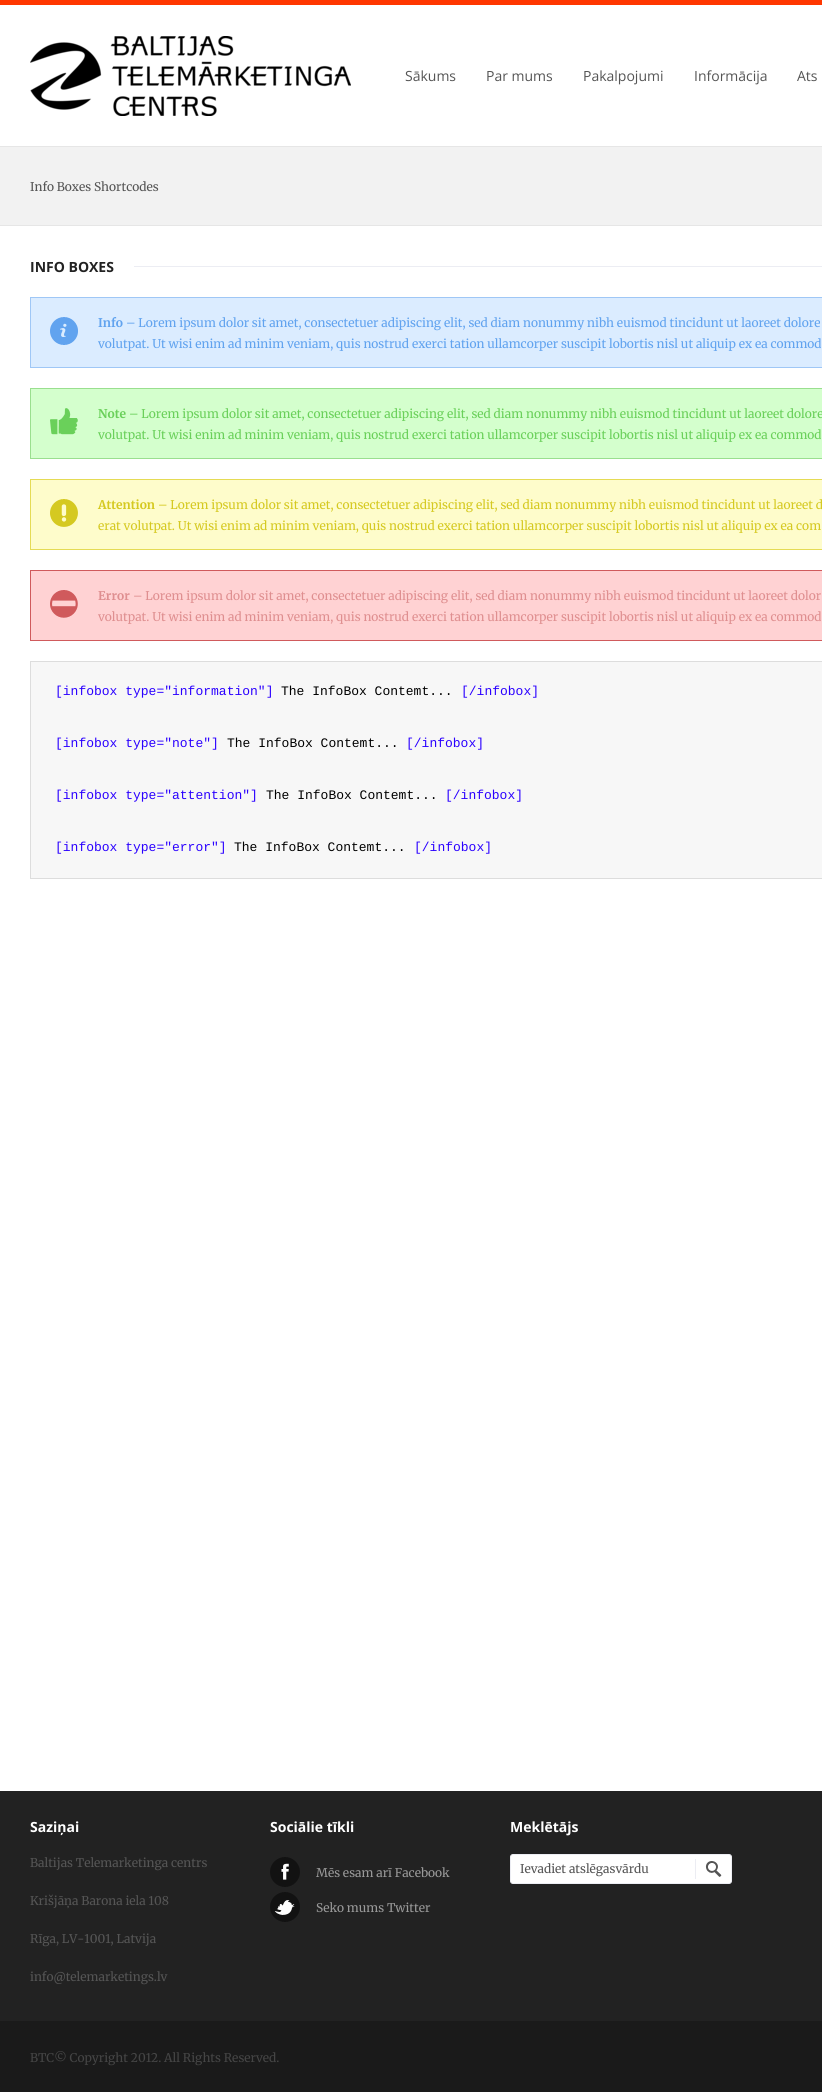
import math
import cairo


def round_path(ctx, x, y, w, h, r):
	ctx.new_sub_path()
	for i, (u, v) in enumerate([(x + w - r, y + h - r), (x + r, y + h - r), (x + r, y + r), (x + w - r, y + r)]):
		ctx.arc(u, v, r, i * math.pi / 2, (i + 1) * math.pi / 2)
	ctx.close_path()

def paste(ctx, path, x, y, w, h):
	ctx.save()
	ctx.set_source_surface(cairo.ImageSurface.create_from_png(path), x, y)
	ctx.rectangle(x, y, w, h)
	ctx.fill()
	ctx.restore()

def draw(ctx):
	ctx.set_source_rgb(1, 1, 1)
	ctx.paint()
	ctx.set_source_rgb(1, 0.216, 0)
	ctx.rectangle(0, 0, 822, 5)
	ctx.fill()
	paste(ctx, 'media/1.png', 30, 36, 321, 80)
	ctx.select_font_face('Open Sans')
	ctx.set_font_size(14)
	ctx.set_source_rgb(0.333, 0.333, 0.333)
	for x, y, s in [
		(405, 81, 'Sākums'),
		(486, 81, 'Par mums'),
		(583, 81, 'Pakalpojumi'),
		(694, 81, 'Informācija'),
		(797, 81, 'Ats'),
	]:
		ctx.move_to(x, y)
		ctx.show_text(s)
	ctx.set_source_rgb(0.949, 0.949, 0.949)
	ctx.rectangle(0, 147, 822, 78)
	ctx.fill()
	ctx.set_source_rgb(0.902, 0.902, 0.902)
	ctx.rectangle(0, 146, 822, 1)
	ctx.rectangle(0, 225, 822, 1)
	ctx.fill()
	ctx.select_font_face('Merriweather')
	ctx.set_font_size(12)
	ctx.set_source_rgb(0.333, 0.333, 0.333)
	ctx.move_to(30, 191)
	ctx.show_text('Info Boxes Shortcodes')
	ctx.set_source_rgb(0.925, 0.929, 0.953)
	ctx.rectangle(134, 266, 688, 1)
	ctx.fill()
	ctx.select_font_face('Open Sans', cairo.FONT_SLANT_NORMAL, cairo.FONT_WEIGHT_BOLD)
	ctx.set_font_size(14)
	ctx.set_source_rgb(0.133, 0.133, 0.133)
	ctx.move_to(30, 272)
	ctx.show_text('INFO BOXES')
	ctx.set_source_rgb(0.859, 0.925, 1)
	ctx.rectangle(31, 298, 791, 69)
	ctx.fill()
	paste(ctx, 'media/2.png', 50, 317, 28, 28)
	ctx.rectangle(30.5, 297.5, 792, 70)
	ctx.set_source_rgb(0.624, 0.78, 0.961)
	ctx.set_line_width(1)
	ctx.stroke()
	ctx.select_font_face('Merriweather', cairo.FONT_SLANT_NORMAL, cairo.FONT_WEIGHT_BOLD)
	ctx.set_font_size(12)
	ctx.set_source_rgb(0.38, 0.639, 0.937)
	ctx.move_to(98, 327)
	ctx.show_text('Info')
	ctx.select_font_face('Merriweather')
	ctx.move_to(126, 327)
	ctx.show_text('– Lorem ipsum dolor sit amet, consectetuer adipiscing elit, sed diam nonummy nibh euismod tincidunt ut laoreet dolore')
	ctx.move_to(98, 348)
	ctx.show_text('volutpat. Ut wisi enim ad minim veniam, quis nostrud exerci tation ullamcorper suscipit lobortis nisl ut aliquip ex ea commod')
	ctx.set_source_rgb(0.831, 1, 0.804)
	ctx.rectangle(31, 389, 791, 69)
	ctx.fill()
	paste(ctx, 'media/3.png', 50, 408, 28, 27)
	ctx.rectangle(30.5, 388.5, 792, 70)
	ctx.set_source_rgb(0.604, 0.875, 0.561)
	ctx.stroke()
	ctx.select_font_face('Merriweather', cairo.FONT_SLANT_NORMAL, cairo.FONT_WEIGHT_BOLD)
	ctx.set_source_rgb(0.416, 0.816, 0.353)
	ctx.move_to(98, 418)
	ctx.show_text('Note')
	ctx.select_font_face('Merriweather')
	ctx.move_to(129, 418)
	ctx.show_text('– Lorem ipsum dolor sit amet, consectetuer adipiscing elit, sed diam nonummy nibh euismod tincidunt ut laoreet dolore')
	ctx.move_to(98, 439)
	ctx.show_text('volutpat. Ut wisi enim ad minim veniam, quis nostrud exerci tation ullamcorper suscipit lobortis nisl ut aliquip ex ea commod')
	ctx.set_source_rgb(0.996, 0.988, 0.796)
	ctx.rectangle(31, 480, 791, 69)
	ctx.fill()
	paste(ctx, 'media/4.png', 50, 499, 28, 28)
	ctx.rectangle(30.5, 479.5, 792, 70)
	ctx.set_source_rgb(0.898, 0.859, 0.333)
	ctx.stroke()
	ctx.select_font_face('Merriweather', cairo.FONT_SLANT_NORMAL, cairo.FONT_WEIGHT_BOLD)
	ctx.set_source_rgb(0.835, 0.788, 0.129)
	ctx.move_to(98, 509)
	ctx.show_text('Attention')
	ctx.select_font_face('Merriweather')
	ctx.move_to(158, 509)
	ctx.show_text('– Lorem ipsum dolor sit amet, consectetuer adipiscing elit, sed diam nonummy nibh euismod tincidunt ut laoreet d')
	ctx.move_to(98, 530)
	ctx.show_text('erat volutpat. Ut wisi enim ad minim veniam, quis nostrud exerci tation ullamcorper suscipit lobortis nisl ut aliquip ex ea com')
	ctx.set_source_rgb(1, 0.824, 0.827)
	ctx.rectangle(31, 571, 791, 69)
	ctx.fill()
	paste(ctx, 'media/5.png', 50, 590, 28, 28)
	ctx.rectangle(30.5, 570.5, 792, 70)
	ctx.set_source_rgb(0.816, 0.353, 0.361)
	ctx.stroke()
	ctx.select_font_face('Merriweather', cairo.FONT_SLANT_NORMAL, cairo.FONT_WEIGHT_BOLD)
	ctx.set_source_rgb(0.875, 0.561, 0.565)
	ctx.move_to(98, 600)
	ctx.show_text('Error')
	ctx.select_font_face('Merriweather')
	ctx.move_to(133, 600)
	ctx.show_text('– Lorem ipsum dolor sit amet, consectetuer adipiscing elit, sed diam nonummy nibh euismod tincidunt ut laoreet dolor')
	ctx.move_to(98, 621)
	ctx.show_text('volutpat. Ut wisi enim ad minim veniam, quis nostrud exerci tation ullamcorper suscipit lobortis nisl ut aliquip ex ea commod')
	ctx.set_source_rgb(0.965, 0.965, 0.965)
	ctx.rectangle(30.5, 661.5, 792, 217)
	ctx.fill_preserve()
	ctx.set_source_rgb(0.867, 0.867, 0.867)
	ctx.stroke()
	ctx.select_font_face('Liberation Mono')
	ctx.set_font_size(13)
	ctx.set_source_rgb(0.165, 0, 1)
	ctx.move_to(55, 695)
	ctx.show_text('[infobox type="information"]')
	ctx.set_source_rgb(0, 0, 0)
	ctx.move_to(281, 695)
	ctx.show_text('The InfoBox Contemt...')
	ctx.set_source_rgb(0.165, 0, 1)
	ctx.move_to(461, 695)
	ctx.show_text('[/infobox]')
	ctx.move_to(55, 747)
	ctx.show_text('[infobox type="note"]')
	ctx.set_source_rgb(0, 0, 0)
	ctx.move_to(227, 747)
	ctx.show_text('The InfoBox Contemt...')
	ctx.set_source_rgb(0.165, 0, 1)
	ctx.move_to(406, 747)
	ctx.show_text('[/infobox]')
	ctx.move_to(55, 799)
	ctx.show_text('[infobox type="attention"]')
	ctx.set_source_rgb(0, 0, 0)
	ctx.move_to(266, 799)
	ctx.show_text('The InfoBox Contemt...')
	ctx.set_source_rgb(0.165, 0, 1)
	ctx.move_to(445, 799)
	ctx.show_text('[/infobox]')
	ctx.move_to(55, 851)
	ctx.show_text('[infobox type="error"]')
	ctx.set_source_rgb(0, 0, 0)
	ctx.move_to(234, 851)
	ctx.show_text('The InfoBox Contemt...')
	ctx.set_source_rgb(0.165, 0, 1)
	ctx.move_to(414, 851)
	ctx.show_text('[/infobox]')
	ctx.set_source_rgb(0.133, 0.133, 0.133)
	ctx.rectangle(0, 1791, 822, 230)
	ctx.fill()
	ctx.select_font_face('Open Sans', cairo.FONT_SLANT_NORMAL, cairo.FONT_WEIGHT_BOLD)
	ctx.set_font_size(14)
	ctx.set_source_rgb(1, 1, 1)
	ctx.move_to(30, 1832)
	ctx.show_text('Saziņai')
	ctx.select_font_face('Merriweather')
	ctx.set_font_size(12)
	ctx.set_source_rgb(0.333, 0.333, 0.333)
	for x, y, s in [
		(30, 1867, 'Baltijas Telemarketinga centrs'),
		(30, 1905, 'Krišjāņa Barona iela 108'),
		(30, 1943, 'Rīga, LV-1001, Latvija'),
		(30, 1981, 'info@telemarketings.lv'),
	]:
		ctx.move_to(x, y)
		ctx.show_text(s)
	ctx.select_font_face('Open Sans', cairo.FONT_SLANT_NORMAL, cairo.FONT_WEIGHT_BOLD)
	ctx.set_font_size(14)
	ctx.set_source_rgb(1, 1, 1)
	ctx.move_to(270, 1832)
	ctx.show_text('Sociālie tīkli')
	paste(ctx, 'media/6.png', 270, 1857, 30, 30)
	ctx.select_font_face('Merriweather')
	ctx.set_font_size(12)
	ctx.set_source_rgb(0.6, 0.6, 0.6)
	ctx.move_to(316, 1877)
	ctx.show_text('Mēs esam arī Facebook')
	paste(ctx, 'media/7.png', 270, 1892, 30, 30)
	ctx.move_to(316, 1912)
	ctx.show_text('Seko mums Twitter')
	ctx.select_font_face('Open Sans', cairo.FONT_SLANT_NORMAL, cairo.FONT_WEIGHT_BOLD)
	ctx.set_font_size(14)
	ctx.set_source_rgb(1, 1, 1)
	ctx.move_to(510, 1832)
	ctx.show_text('Meklētājs')
	round_path(ctx, 510.5, 1854.5, 221, 29, 2.5)
	ctx.fill_preserve()
	ctx.set_source_rgb(0.925, 0.929, 0.953)
	ctx.stroke()
	ctx.select_font_face('Merriweather')
	ctx.set_font_size(12)
	ctx.set_source_rgb(0.333, 0.333, 0.333)
	ctx.move_to(520, 1873)
	ctx.show_text('Ievadiet atslēgasvārdu')
	paste(ctx, 'media/8.png', 695, 1859, 27, 20)
	ctx.set_source_rgb(0.102, 0.102, 0.102)
	ctx.rectangle(0, 2021, 822, 71)
	ctx.fill()
	ctx.set_source_rgb(0.271, 0.271, 0.271)
	ctx.move_to(30, 2062)
	ctx.show_text('BTC© Copyright 2012. All Rights Reserved.')


surface = cairo.ImageSurface(cairo.FORMAT_RGB24, 822, 2092)
ctx = cairo.Context(surface)
options = cairo.FontOptions()
options.set_hint_metrics(cairo.HINT_METRICS_OFF)
options.set_hint_style(cairo.HINT_STYLE_NONE)
ctx.set_font_options(options)
ctx.set_miter_limit(4)
draw(ctx)
surface.write_to_png('image.png')
